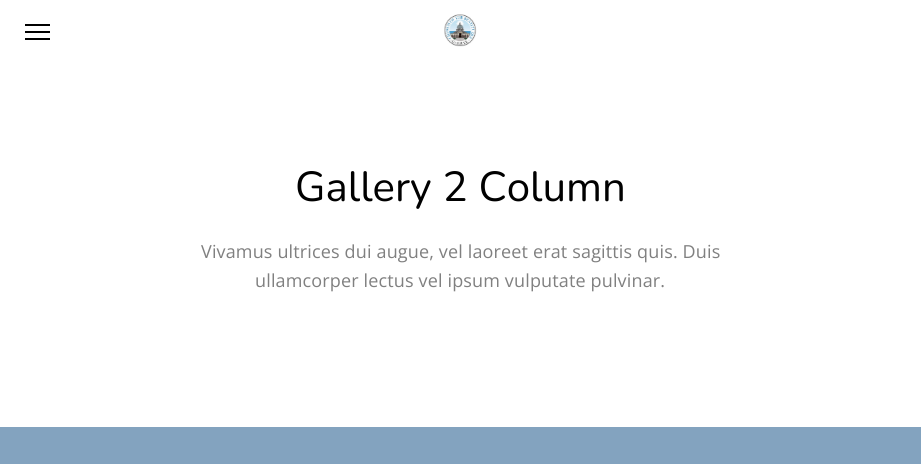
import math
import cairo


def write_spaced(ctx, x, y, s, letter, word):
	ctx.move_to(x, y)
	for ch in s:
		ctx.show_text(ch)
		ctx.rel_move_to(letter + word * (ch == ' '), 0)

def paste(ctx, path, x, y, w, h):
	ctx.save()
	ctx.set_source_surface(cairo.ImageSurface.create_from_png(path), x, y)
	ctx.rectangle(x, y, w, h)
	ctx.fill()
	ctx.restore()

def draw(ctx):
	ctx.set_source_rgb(0.514, 0.639, 0.749)
	ctx.paint()
	ctx.set_source_rgb(1, 1, 1)
	ctx.rectangle(0, 0, 921, 427)
	ctx.fill()
	ctx.set_source_rgb(0, 0, 0)
	ctx.rectangle(25, 31, 25, 2)
	ctx.rectangle(25, 24, 25, 2)
	ctx.rectangle(25, 38, 25, 2)
	ctx.fill()
	paste(ctx, 'media/1.png', 444, 14, 33, 33)
	ctx.select_font_face('Nunito')
	ctx.set_font_size(42)
	ctx.move_to(295, 201)
	ctx.show_text('Gallery 2 Column')
	ctx.select_font_face('Open Sans')
	ctx.set_font_size(18)
	ctx.set_source_rgb(0.502, 0.502, 0.502)
	write_spaced(ctx, 201, 258, 'Vivamus ultrices dui augue, vel laoreet erat sagittis quis. Duis', 0.15, 0)
	write_spaced(ctx, 255, 287, 'ullamcorper lectus vel ipsum vulputate pulvinar.', 0.15, 0)


surface = cairo.ImageSurface(cairo.FORMAT_RGB24, 921, 464)
ctx = cairo.Context(surface)
options = cairo.FontOptions()
options.set_hint_metrics(cairo.HINT_METRICS_OFF)
options.set_hint_style(cairo.HINT_STYLE_NONE)
ctx.set_font_options(options)
ctx.set_miter_limit(4)
draw(ctx)
surface.write_to_png('image.png')
